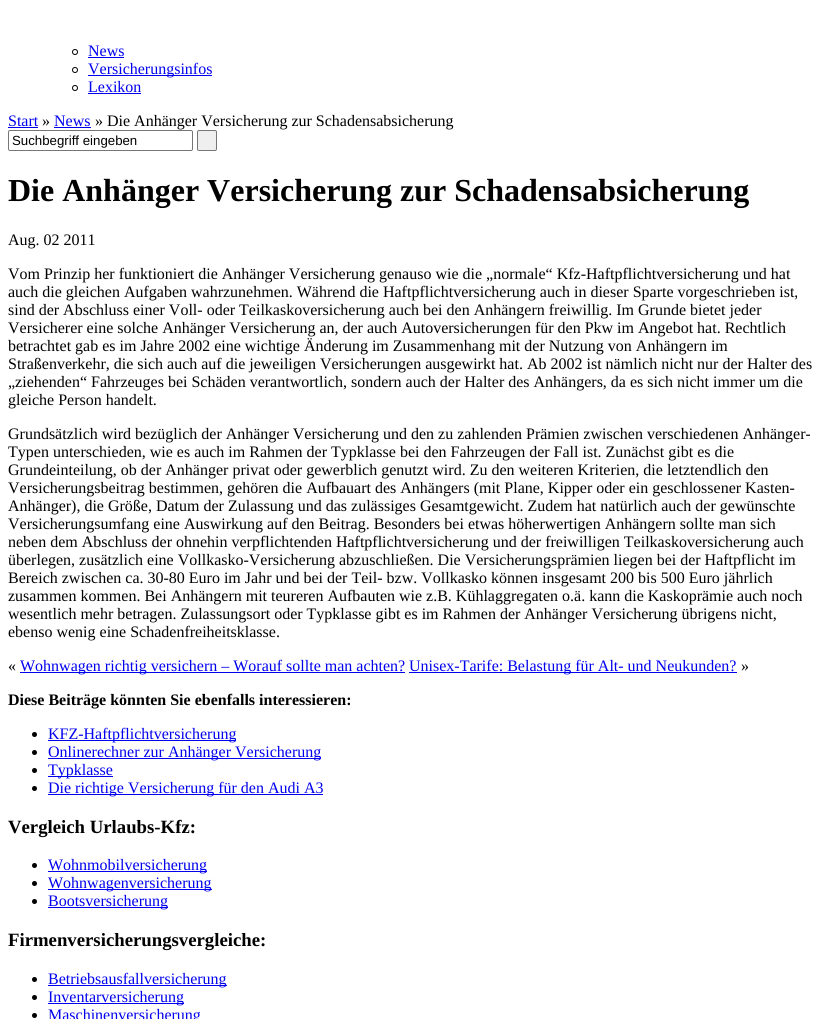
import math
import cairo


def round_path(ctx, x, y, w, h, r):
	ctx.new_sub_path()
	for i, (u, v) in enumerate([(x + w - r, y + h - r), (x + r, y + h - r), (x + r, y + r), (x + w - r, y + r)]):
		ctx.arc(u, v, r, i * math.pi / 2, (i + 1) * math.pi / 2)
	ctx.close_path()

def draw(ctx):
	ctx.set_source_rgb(1, 1, 1)
	ctx.paint()
	ctx.arc(75, 52, 2.5, 0, 2 * math.pi)
	ctx.set_source_rgb(0, 0, 0)
	ctx.set_line_width(1)
	ctx.stroke()
	ctx.select_font_face('Liberation Serif')
	ctx.set_font_size(16)
	ctx.set_source_rgb(0, 0, 0.933)
	ctx.move_to(88, 56)
	ctx.show_text('News')
	ctx.rectangle(88, 57, 36, 1)
	ctx.fill()
	ctx.arc(75, 70, 2.5, 0, 2 * math.pi)
	ctx.set_source_rgb(0, 0, 0)
	ctx.stroke()
	ctx.set_source_rgb(0, 0, 0.933)
	ctx.rectangle(88, 75, 124, 1)
	ctx.fill()
	ctx.move_to(88, 74)
	ctx.show_text('Versicherungsinfos')
	ctx.new_path()
	ctx.arc(75, 88, 2.5, 0, 2 * math.pi)
	ctx.set_source_rgb(0, 0, 0)
	ctx.stroke()
	ctx.set_source_rgb(0, 0, 0.933)
	ctx.move_to(88, 92)
	ctx.show_text('Lexikon')
	ctx.rectangle(88, 93, 53, 1)
	ctx.fill()
	ctx.move_to(8, 126)
	ctx.show_text('Start')
	ctx.rectangle(8, 127, 30, 1)
	ctx.fill()
	ctx.set_source_rgb(0, 0, 0)
	ctx.move_to(42, 126)
	ctx.show_text('»')
	ctx.set_source_rgb(0, 0, 0.933)
	ctx.move_to(54, 126)
	ctx.show_text('News')
	ctx.rectangle(54, 127, 37, 1)
	ctx.fill()
	ctx.set_source_rgb(0, 0, 0)
	ctx.move_to(95, 126)
	ctx.show_text('» Die Anhänger Versicherung zur Schadensabsicherung')
	round_path(ctx, 8.5, 130.5, 184, 20, 1.5)
	ctx.set_source_rgb(0.463, 0.463, 0.463)
	ctx.stroke()
	ctx.select_font_face('Liberation Sans')
	ctx.set_font_size(13.25)
	ctx.set_source_rgb(0, 0, 0)
	ctx.move_to(12, 145)
	ctx.show_text('Suchbegriff eingeben')
	ctx.set_source_rgb(0.937, 0.937, 0.937)
	round_path(ctx, 197.5, 130.5, 19, 20, 1.5)
	ctx.fill_preserve()
	ctx.set_source_rgb(0.463, 0.463, 0.463)
	ctx.stroke()
	ctx.select_font_face('Liberation Serif', cairo.FONT_SLANT_NORMAL, cairo.FONT_WEIGHT_BOLD)
	ctx.set_font_size(32)
	ctx.set_source_rgb(0, 0, 0)
	ctx.move_to(8, 201)
	ctx.show_text('Die Anhänger Versicherung zur Schadensabsicherung')
	ctx.select_font_face('Liberation Serif')
	ctx.set_font_size(16)
	for x, y, s in [
		(8, 245, 'Aug. 02 2011'),
		(8, 279, 'Vom Prinzip her funktioniert die Anhänger Versicherung genauso wie die „normale“ Kfz-Haftpflichtversicherung und hat'),
		(8, 297, 'auch die gleichen Aufgaben wahrzunehmen. Während die Haftpflichtversicherung auch in dieser Sparte vorgeschrieben ist,'),
		(8, 315, 'sind der Abschluss einer Voll- oder Teilkaskoversicherung auch bei den Anhängern freiwillig. Im Grunde bietet jeder'),
		(8, 333, 'Versicherer eine solche Anhänger Versicherung an, der auch Autoversicherungen für den Pkw im Angebot hat. Rechtlich'),
		(8, 351, 'betrachtet gab es im Jahre 2002 eine wichtige Änderung im Zusammenhang mit der Nutzung von Anhängern im'),
		(8, 369, 'Straßenverkehr, die sich auch auf die jeweiligen Versicherungen ausgewirkt hat. Ab 2002 ist nämlich nicht nur der Halter des'),
		(8, 387, '„ziehenden“ Fahrzeuges bei Schäden verantwortlich, sondern auch der Halter des Anhängers, da es sich nicht immer um die'),
		(8, 405, 'gleiche Person handelt.'),
		(8, 439, 'Grundsätzlich wird bezüglich der Anhänger Versicherung und den zu zahlenden Prämien zwischen verschiedenen Anhänger-'),
		(8, 457, 'Typen unterschieden, wie es auch im Rahmen der Typklasse bei den Fahrzeugen der Fall ist. Zunächst gibt es die'),
		(8, 475, 'Grundeinteilung, ob der Anhänger privat oder gewerblich genutzt wird. Zu den weiteren Kriterien, die letztendlich den'),
		(8, 493, 'Versicherungsbeitrag bestimmen, gehören die Aufbauart des Anhängers (mit Plane, Kipper oder ein geschlossener Kasten-'),
		(8, 511, 'Anhänger), die Größe, Datum der Zulassung und das zulässiges Gesamtgewicht. Zudem hat natürlich auch der gewünschte'),
		(8, 529, 'Versicherungsumfang eine Auswirkung auf den Beitrag. Besonders bei etwas höherwertigen Anhängern sollte man sich'),
		(8, 547, 'neben dem Abschluss der ohnehin verpflichtenden Haftpflichtversicherung und der freiwilligen Teilkaskoversicherung auch'),
		(8, 565, 'überlegen, zusätzlich eine Vollkasko-Versicherung abzuschließen. Die Versicherungsprämien liegen bei der Haftpflicht im'),
		(8, 583, 'Bereich zwischen ca. 30-80 Euro im Jahr und bei der Teil- bzw. Vollkasko können insgesamt 200 bis 500 Euro jährlich'),
		(8, 601, 'zusammen kommen. Bei Anhängern mit teureren Aufbauten wie z.B. Kühlaggregaten o.ä. kann die Kaskoprämie auch noch'),
		(8, 619, 'wesentlich mehr betragen. Zulassungsort oder Typklasse gibt es im Rahmen der Anhänger Versicherung übrigens nicht,'),
		(8, 637, 'ebenso wenig eine Schadenfreiheitsklasse.'),
		(8, 671, '«'),
	]:
		ctx.move_to(x, y)
		ctx.show_text(s)
	ctx.set_source_rgb(0, 0, 0.933)
	ctx.rectangle(20, 672, 385, 1)
	ctx.fill()
	ctx.move_to(20, 671)
	ctx.show_text('Wohnwagen richtig versichern – Worauf sollte man achten?')
	ctx.rectangle(409, 672, 328, 1)
	ctx.fill()
	ctx.move_to(409, 671)
	ctx.show_text('Unisex-Tarife: Belastung für Alt- und Neukunden?')
	ctx.set_source_rgb(0, 0, 0)
	ctx.move_to(741, 671)
	ctx.show_text('»')
	ctx.select_font_face('Liberation Serif', cairo.FONT_SLANT_NORMAL, cairo.FONT_WEIGHT_BOLD)
	ctx.move_to(8, 705)
	ctx.show_text('Diese Beiträge könnten Sie ebenfalls interessieren:')
	ctx.new_path()
	ctx.arc(34.5, 734.5, 2.5, 0, 2 * math.pi)
	ctx.fill()
	ctx.set_source_rgb(0, 0, 0.933)
	ctx.rectangle(48, 740, 188, 1)
	ctx.fill()
	ctx.select_font_face('Liberation Serif')
	ctx.move_to(48, 739)
	ctx.show_text('KFZ-Haftpflichtversicherung')
	ctx.set_source_rgb(0, 0, 0)
	ctx.new_path()
	ctx.arc(34.5, 752.5, 2.5, 0, 2 * math.pi)
	ctx.fill()
	ctx.set_source_rgb(0, 0, 0.933)
	ctx.rectangle(48, 758, 273, 1)
	ctx.fill()
	ctx.move_to(48, 757)
	ctx.show_text('Onlinerechner zur Anhänger Versicherung')
	ctx.set_source_rgb(0, 0, 0)
	ctx.new_path()
	ctx.arc(34.5, 770.5, 2.5, 0, 2 * math.pi)
	ctx.fill()
	ctx.set_source_rgb(0, 0, 0.933)
	ctx.rectangle(48, 776, 65, 1)
	ctx.fill()
	ctx.move_to(48, 775)
	ctx.show_text('Typklasse')
	ctx.set_source_rgb(0, 0, 0)
	ctx.new_path()
	ctx.arc(34.5, 788.5, 2.5, 0, 2 * math.pi)
	ctx.fill()
	ctx.set_source_rgb(0, 0, 0.933)
	ctx.rectangle(48, 794, 275, 1)
	ctx.fill()
	ctx.move_to(48, 793)
	ctx.show_text('Die richtige Versicherung für den Audi A3')
	ctx.select_font_face('Liberation Serif', cairo.FONT_SLANT_NORMAL, cairo.FONT_WEIGHT_BOLD)
	ctx.set_font_size(18.75)
	ctx.set_source_rgb(0, 0, 0)
	ctx.move_to(8, 833)
	ctx.show_text('Vergleich Urlaubs-Kfz:')
	ctx.new_path()
	ctx.arc(34.5, 865.5, 2.5, 0, 2 * math.pi)
	ctx.fill()
	ctx.set_source_rgb(0, 0, 0.933)
	ctx.rectangle(48, 871, 159, 1)
	ctx.fill()
	ctx.select_font_face('Liberation Serif')
	ctx.set_font_size(16)
	ctx.move_to(48, 870)
	ctx.show_text('Wohnmobilversicherung')
	ctx.set_source_rgb(0, 0, 0)
	ctx.new_path()
	ctx.arc(34.5, 883.5, 2.5, 0, 2 * math.pi)
	ctx.fill()
	ctx.set_source_rgb(0, 0, 0.933)
	ctx.rectangle(48, 889, 164, 1)
	ctx.fill()
	ctx.move_to(48, 888)
	ctx.show_text('Wohnwagenversicherung')
	ctx.set_source_rgb(0, 0, 0)
	ctx.new_path()
	ctx.arc(34.5, 901.5, 2.5, 0, 2 * math.pi)
	ctx.fill()
	ctx.set_source_rgb(0, 0, 0.933)
	ctx.rectangle(48, 907, 120, 1)
	ctx.fill()
	ctx.move_to(48, 906)
	ctx.show_text('Bootsversicherung')
	ctx.select_font_face('Liberation Serif', cairo.FONT_SLANT_NORMAL, cairo.FONT_WEIGHT_BOLD)
	ctx.set_font_size(18.75)
	ctx.set_source_rgb(0, 0, 0)
	ctx.move_to(8, 946)
	ctx.show_text('Firmenversicherungsvergleiche:')
	ctx.new_path()
	ctx.arc(34.5, 979.5, 2.5, 0, 2 * math.pi)
	ctx.fill()
	ctx.set_source_rgb(0, 0, 0.933)
	ctx.rectangle(48, 985, 179, 1)
	ctx.fill()
	ctx.select_font_face('Liberation Serif')
	ctx.set_font_size(16)
	ctx.move_to(48, 984)
	ctx.show_text('Betriebsausfallversicherung')
	ctx.set_source_rgb(0, 0, 0)
	ctx.new_path()
	ctx.arc(34.5, 997.5, 2.5, 0, 2 * math.pi)
	ctx.fill()
	ctx.set_source_rgb(0, 0, 0.933)
	ctx.rectangle(48, 1003, 136, 1)
	ctx.fill()
	ctx.move_to(48, 1002)
	ctx.show_text('Inventarversicherung')
	ctx.set_source_rgb(0, 0, 0)
	ctx.new_path()
	ctx.arc(34.5, 1015.5, 2.5, 0, 2 * math.pi)
	ctx.fill()
	ctx.set_source_rgb(0, 0, 0.933)
	ctx.move_to(48, 1020)
	ctx.show_text('Maschinenversicherung')


surface = cairo.ImageSurface(cairo.FORMAT_RGB24, 821, 1019)
ctx = cairo.Context(surface)
options = cairo.FontOptions()
options.set_hint_metrics(cairo.HINT_METRICS_OFF)
options.set_hint_style(cairo.HINT_STYLE_NONE)
ctx.set_font_options(options)
ctx.set_miter_limit(4)
draw(ctx)
surface.write_to_png('image.png')
